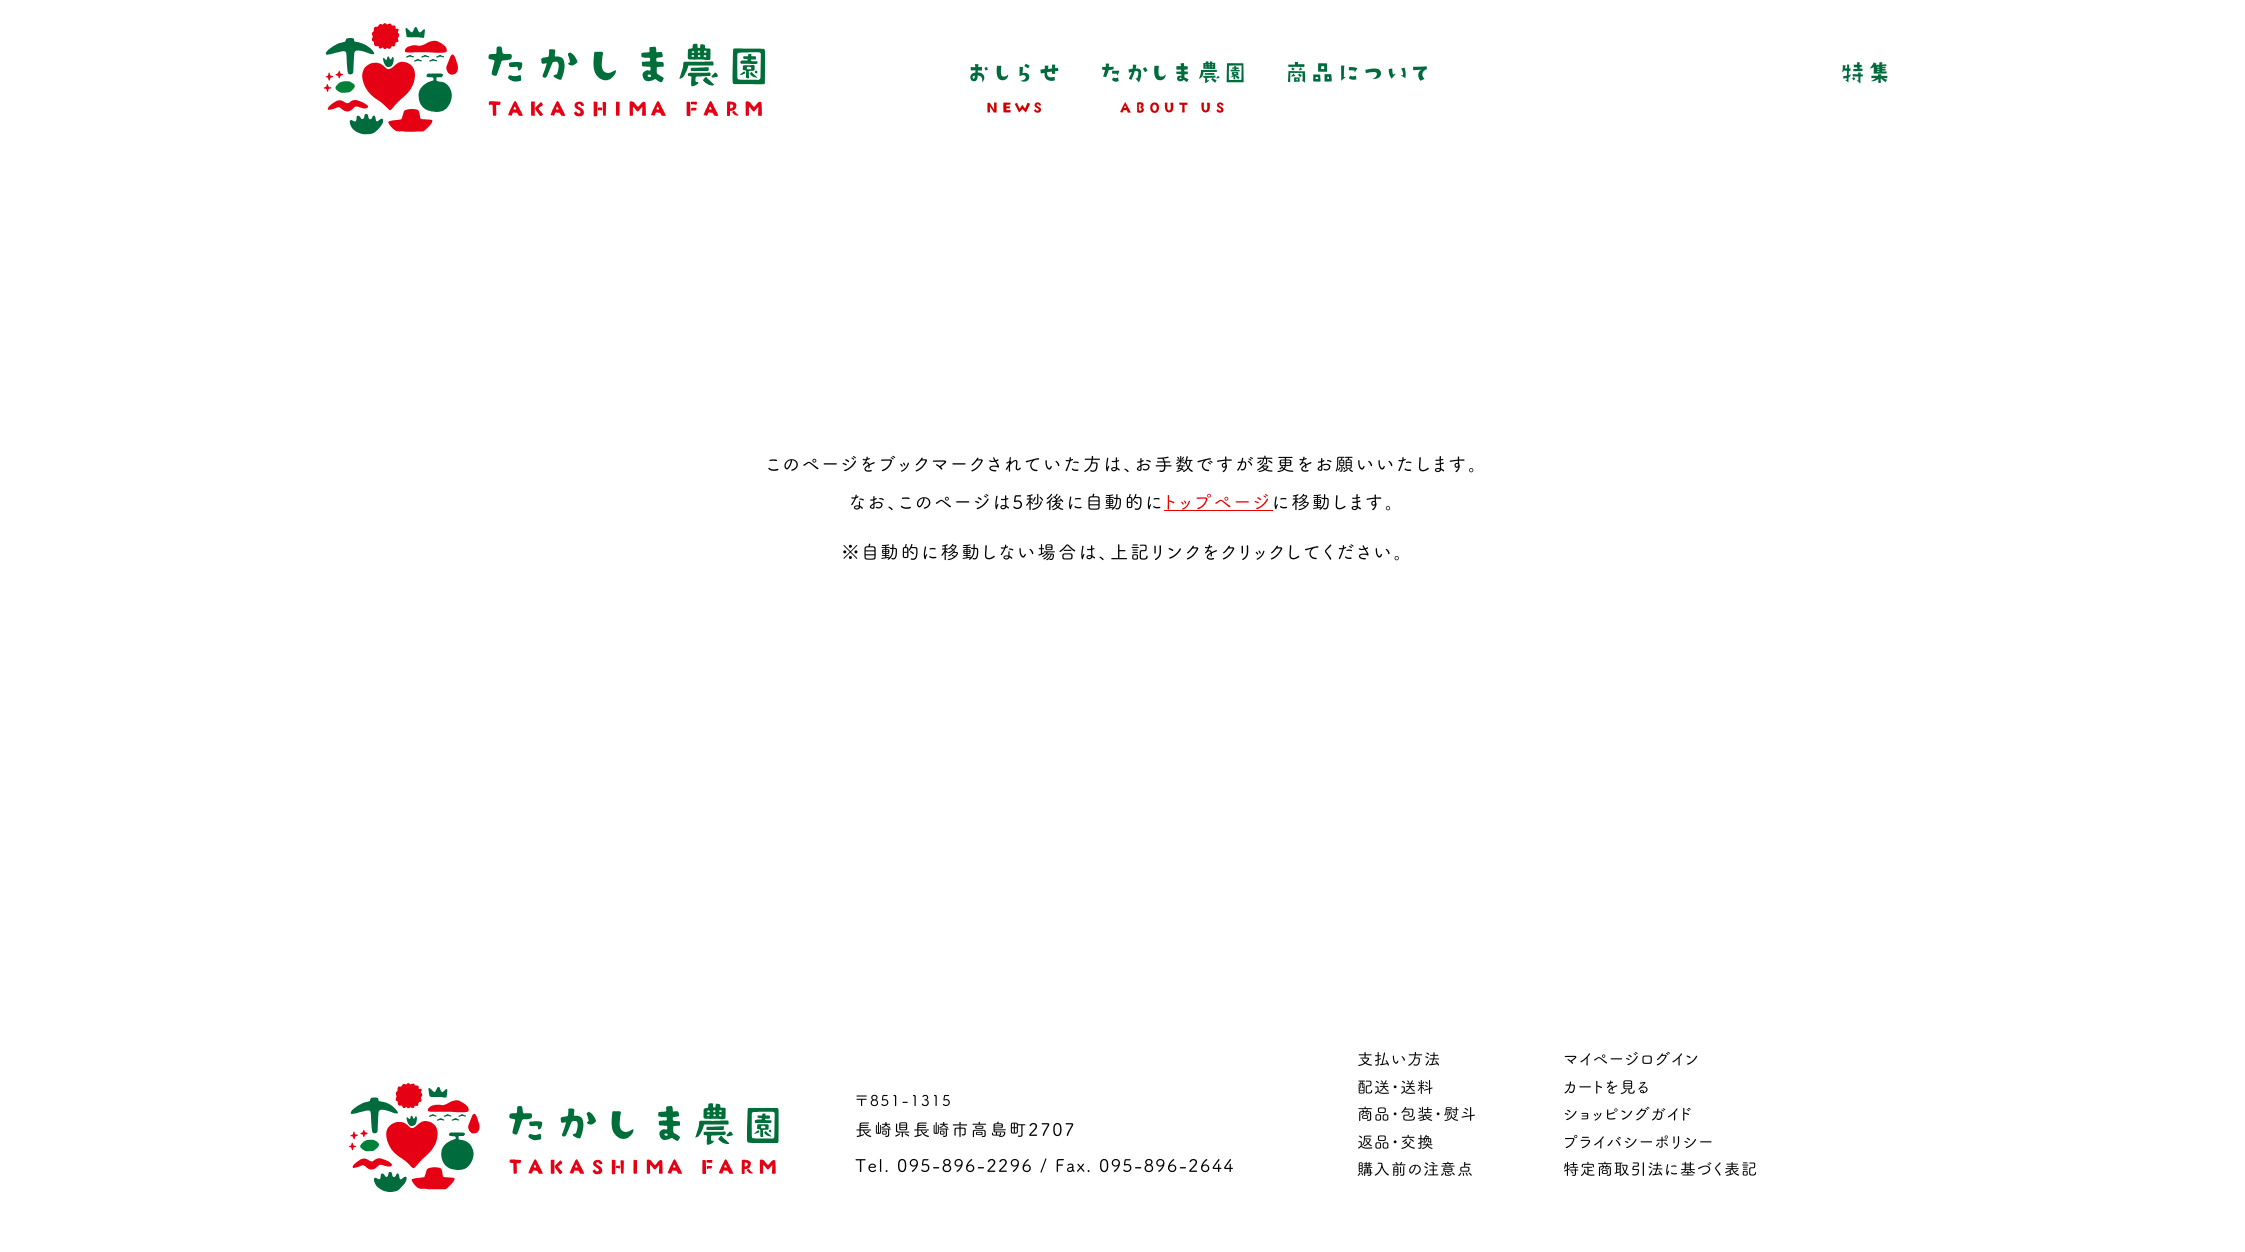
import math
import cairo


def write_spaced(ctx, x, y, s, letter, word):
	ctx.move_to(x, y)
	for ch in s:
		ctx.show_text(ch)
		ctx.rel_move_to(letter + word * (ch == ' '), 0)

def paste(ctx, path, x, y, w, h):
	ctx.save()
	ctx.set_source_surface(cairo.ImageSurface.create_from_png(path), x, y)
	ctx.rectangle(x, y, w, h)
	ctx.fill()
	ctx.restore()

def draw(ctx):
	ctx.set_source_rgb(1, 1, 1)
	ctx.paint()
	paste(ctx, 'media/1.png', 323, 23, 442, 112)
	paste(ctx, 'media/2.png', 970, 63, 89, 19)
	paste(ctx, 'media/3.png', 987, 102, 54, 11)
	paste(ctx, 'media/4.png', 1102, 61, 142, 22)
	paste(ctx, 'media/5.png', 1120, 102, 104, 11)
	paste(ctx, 'media/6.png', 1288, 61, 139, 22)
	paste(ctx, 'media/7.png', 1842, 62, 46, 22)
	ctx.select_font_face('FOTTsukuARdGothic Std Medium')
	ctx.set_font_size(18.75)
	ctx.set_source_rgb(0, 0, 0)
	write_spaced(ctx, 766, 471, 'このページをブックマークされていた方は、お手数ですが変更をお願いいたします。', 1.9, 0)
	write_spaced(ctx, 849, 509, 'なお、このページは5秒後に自動的に', 1.9, 0)
	ctx.set_source_rgb(0.918, 0, 0)
	write_spaced(ctx, 1164, 509, 'トップページ', 1.9, 0)
	ctx.rectangle(1164, 510, 109, 1)
	ctx.fill()
	ctx.set_source_rgb(0, 0, 0)
	write_spaced(ctx, 1272, 509, 'に移動します。', 1.9, 0)
	write_spaced(ctx, 841, 559, '※自動的に移動しない場合は、上記リンクをクリックしてください。', 1.9, 0)
	paste(ctx, 'media/8.png', 348, 1083, 431, 109)
	ctx.set_font_size(15)
	write_spaced(ctx, 855, 1106, '〒851-1315', 1.75, 0)
	ctx.set_font_size(17.5)
	write_spaced(ctx, 855, 1136, '長崎県長崎市高島町2707', 1.75, 0)
	write_spaced(ctx, 855, 1172, 'Tel. 095-896-2296 / Fax. 095-896-2644', 1.4, 0)
	ctx.set_font_size(16.25)
	for x, y, s in [
		(1357, 1065, '支払い方法'),
		(1357, 1093, '配送・送料'),
		(1357, 1120, '商品・包装・熨斗'),
		(1357, 1148, '返品・交換'),
		(1357, 1175, '購入前の注意点'),
		(1563, 1065, 'マイページログイン'),
		(1563, 1093, 'カートを見る'),
		(1563, 1120, 'ショッピングガイド'),
		(1563, 1148, 'プライバシーポリシー'),
		(1563, 1175, '特定商取引法に基づく表記'),
	]:
		write_spaced(ctx, x, y, s, 0.6, 0)


surface = cairo.ImageSurface(cairo.FORMAT_RGB24, 2245, 1252)
ctx = cairo.Context(surface)
options = cairo.FontOptions()
options.set_hint_metrics(cairo.HINT_METRICS_OFF)
options.set_hint_style(cairo.HINT_STYLE_NONE)
ctx.set_font_options(options)
ctx.set_miter_limit(4)
draw(ctx)
surface.write_to_png('image.png')
